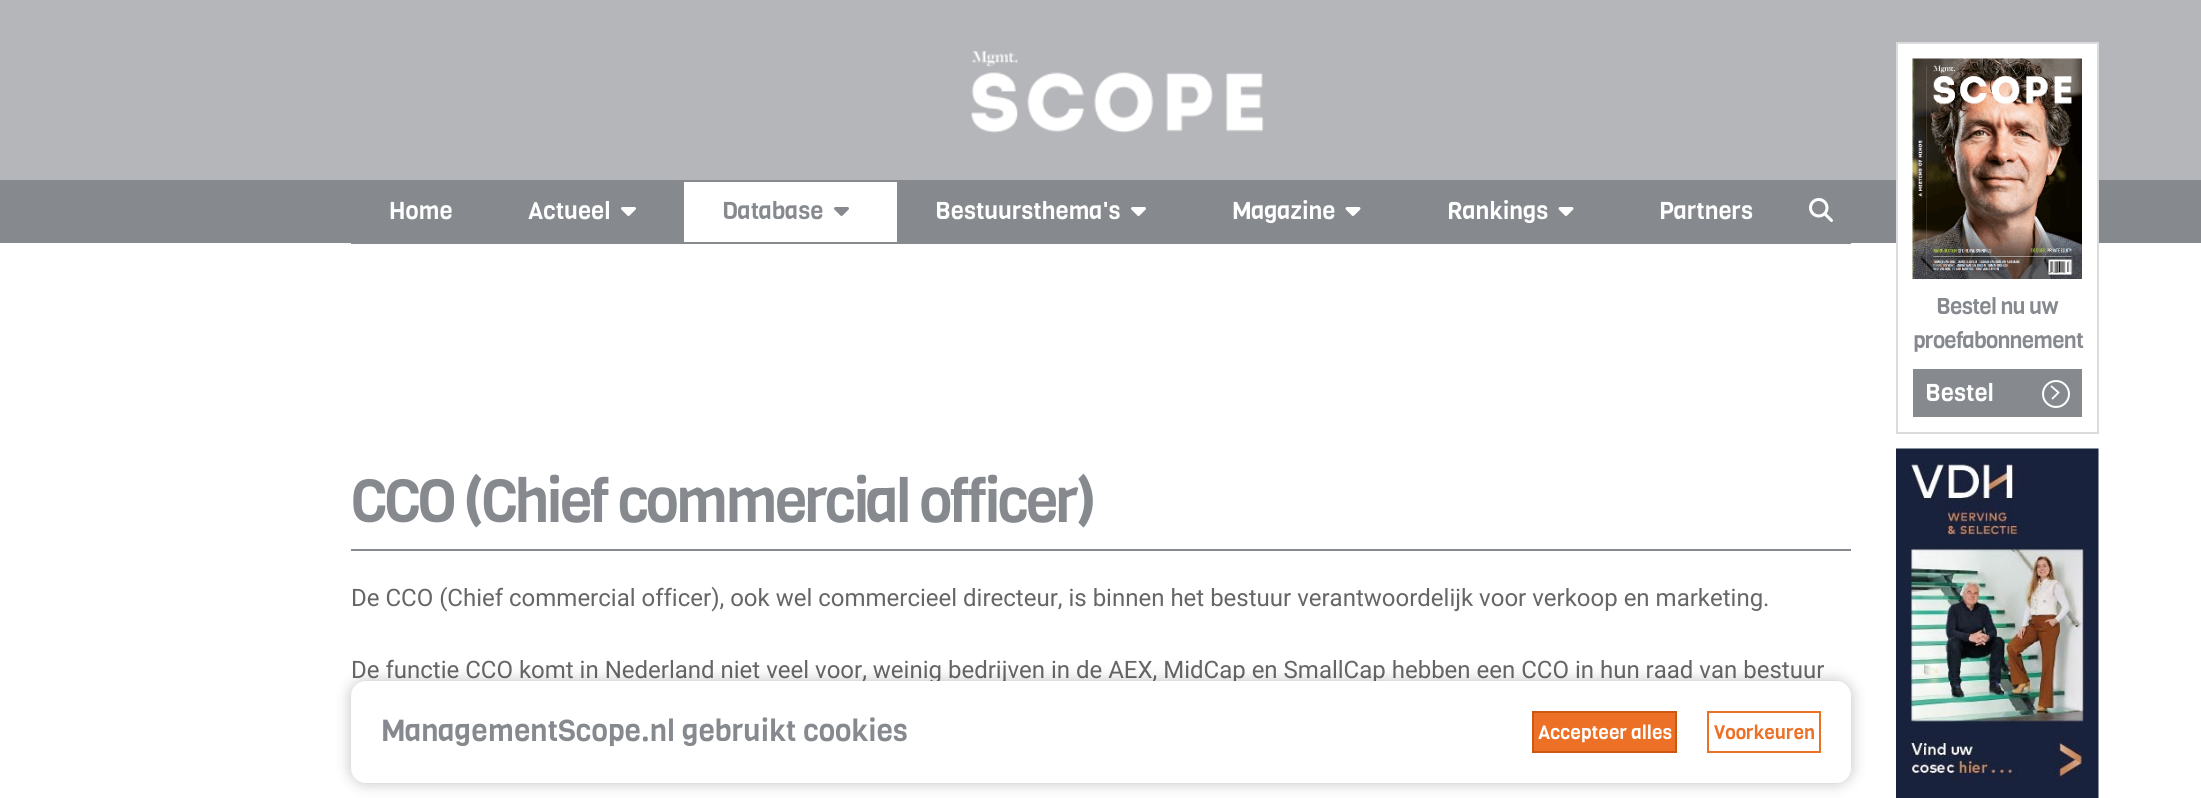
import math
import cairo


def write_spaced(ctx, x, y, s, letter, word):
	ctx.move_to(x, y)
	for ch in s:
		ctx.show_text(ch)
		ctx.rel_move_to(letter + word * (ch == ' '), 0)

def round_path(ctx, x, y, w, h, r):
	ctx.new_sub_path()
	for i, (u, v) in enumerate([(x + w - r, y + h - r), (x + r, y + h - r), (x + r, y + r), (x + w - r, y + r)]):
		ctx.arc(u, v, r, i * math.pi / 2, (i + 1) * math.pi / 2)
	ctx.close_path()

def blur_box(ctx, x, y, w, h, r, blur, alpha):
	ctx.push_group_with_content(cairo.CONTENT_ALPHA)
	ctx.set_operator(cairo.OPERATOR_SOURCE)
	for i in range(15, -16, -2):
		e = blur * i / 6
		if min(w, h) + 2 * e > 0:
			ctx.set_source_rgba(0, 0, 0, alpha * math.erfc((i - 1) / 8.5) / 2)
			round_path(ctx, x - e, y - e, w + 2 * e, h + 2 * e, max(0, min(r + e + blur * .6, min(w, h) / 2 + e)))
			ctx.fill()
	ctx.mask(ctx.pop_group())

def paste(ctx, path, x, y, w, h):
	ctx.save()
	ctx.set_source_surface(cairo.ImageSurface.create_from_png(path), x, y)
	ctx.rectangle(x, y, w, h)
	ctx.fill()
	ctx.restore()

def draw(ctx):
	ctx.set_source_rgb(1, 1, 1)
	ctx.paint()
	ctx.set_source_rgb(0.525, 0.541, 0.561)
	ctx.rectangle(0, 180, 2201, 63)
	ctx.fill()
	ctx.rectangle(351, 243, 1500, 1)
	ctx.fill()
	ctx.select_font_face('Viga')
	ctx.set_font_size(24)
	ctx.set_source_rgb(1, 1, 1)
	ctx.move_to(389, 219)
	ctx.show_text('Home')
	ctx.move_to(528, 219)
	ctx.show_text('Actueel')
	paste(ctx, 'media/1.png', 621, 207, 15, 9)
	ctx.rectangle(684, 182, 213, 60)
	ctx.fill()
	ctx.set_source_rgb(0.525, 0.541, 0.561)
	ctx.move_to(722, 219)
	ctx.show_text('Database')
	paste(ctx, 'media/2.png', 834, 207, 15, 9)
	ctx.set_source_rgb(1, 1, 1)
	ctx.move_to(935, 219)
	ctx.show_text('Bestuursthema\'s')
	paste(ctx, 'media/1.png', 1131, 207, 15, 9)
	ctx.move_to(1232, 219)
	ctx.show_text('Magazine')
	paste(ctx, 'media/3.png', 1345, 207, 16, 9)
	ctx.move_to(1447, 219)
	ctx.show_text('Rankings')
	paste(ctx, 'media/3.png', 1558, 207, 16, 9)
	ctx.move_to(1659, 219)
	ctx.show_text('Partners')
	paste(ctx, 'media/4.png', 1809, 198, 24, 24)
	ctx.set_source_rgb(0.71, 0.714, 0.729)
	ctx.rectangle(0, 0, 2201, 180)
	ctx.fill()
	paste(ctx, 'media/5.png', 971, 51, 293, 82)
	ctx.set_source_rgb(1, 1, 1)
	ctx.rectangle(1898, 44, 199, 199)
	ctx.fill()
	ctx.rectangle(1897, 43, 201, 390)
	ctx.set_source_rgb(0.859, 0.859, 0.859)
	ctx.stroke()
	paste(ctx, 'media/6.png', 1912, 58, 170, 221)
	ctx.set_font_size(22.5)
	ctx.set_source_rgb(0.525, 0.541, 0.561)
	write_spaced(ctx, 1936, 314, 'Bestel nu uw', -0.75, 0)
	write_spaced(ctx, 1913, 348, 'proefabonnement', -0.75, 0)
	ctx.rectangle(1913, 369, 169, 48)
	ctx.fill()
	ctx.set_font_size(24)
	ctx.set_source_rgb(1, 1, 1)
	ctx.move_to(1925, 401)
	ctx.show_text('Bestel')
	ctx.new_path()
	ctx.arc(2056, 394, 13, 0, 2 * math.pi)
	ctx.stroke()
	ctx.new_path()
	ctx.move_to(2051, 386)
	ctx.line_to(2058.5, 392.5)
	ctx.line_to(2052, 399)
	ctx.set_line_width(1.8)
	ctx.stroke()
	paste(ctx, 'media/7.png', 1896, 448, 203, 350)
	ctx.set_source_rgb(0.525, 0.541, 0.561)
	ctx.rectangle(351, 549, 1500, 2)
	ctx.fill()
	ctx.set_font_size(60)
	write_spaced(ctx, 351, 522, 'CCO (Chief commercial officer)', -3, 0)
	ctx.select_font_face('Roboto')
	ctx.set_font_size(24)
	ctx.set_source_rgb(0.4, 0.4, 0.4)
	ctx.move_to(351, 606)
	ctx.show_text('De CCO (Chief commercial officer), ook wel commercieel directeur, is binnen het bestuur verantwoordelijk voor verkoop en marketing.')
	ctx.move_to(351, 678)
	ctx.show_text('De functie CCO komt in Nederland niet veel voor, weinig bedrijven in de AEX, MidCap en SmallCap hebben een CCO in hun raad van bestuur')
	ctx.set_source_rgb(0, 0, 0)
	blur_box(ctx, 351, 681, 1500, 102, 15, 7.5, 0.25)
	ctx.set_source_rgb(1, 1, 1)
	round_path(ctx, 351, 681, 1500, 102, 15)
	ctx.fill()
	ctx.select_font_face('Viga')
	ctx.set_font_size(30)
	ctx.set_source_rgb(0.525, 0.541, 0.561)
	ctx.move_to(381, 741)
	ctx.show_text('ManagementScope.nl gebruikt cookies')
	ctx.set_source_rgb(0.925, 0.439, 0.149)
	ctx.rectangle(1533, 712, 143, 40)
	ctx.fill_preserve()
	ctx.set_source_rgb(0.804, 0.345, 0.071)
	ctx.set_line_width(2)
	ctx.stroke()
	ctx.set_font_size(19.25)
	ctx.set_source_rgb(1, 1, 1)
	ctx.move_to(1538, 739)
	ctx.show_text('Accepteer alles')
	ctx.rectangle(1708, 712, 112, 40)
	ctx.set_source_rgb(0.925, 0.439, 0.149)
	ctx.stroke()
	ctx.move_to(1714, 739)
	ctx.show_text('Voorkeuren')


surface = cairo.ImageSurface(cairo.FORMAT_RGB24, 2201, 798)
ctx = cairo.Context(surface)
options = cairo.FontOptions()
options.set_hint_metrics(cairo.HINT_METRICS_OFF)
options.set_hint_style(cairo.HINT_STYLE_NONE)
ctx.set_font_options(options)
ctx.set_miter_limit(4)
draw(ctx)
surface.write_to_png('image.png')
